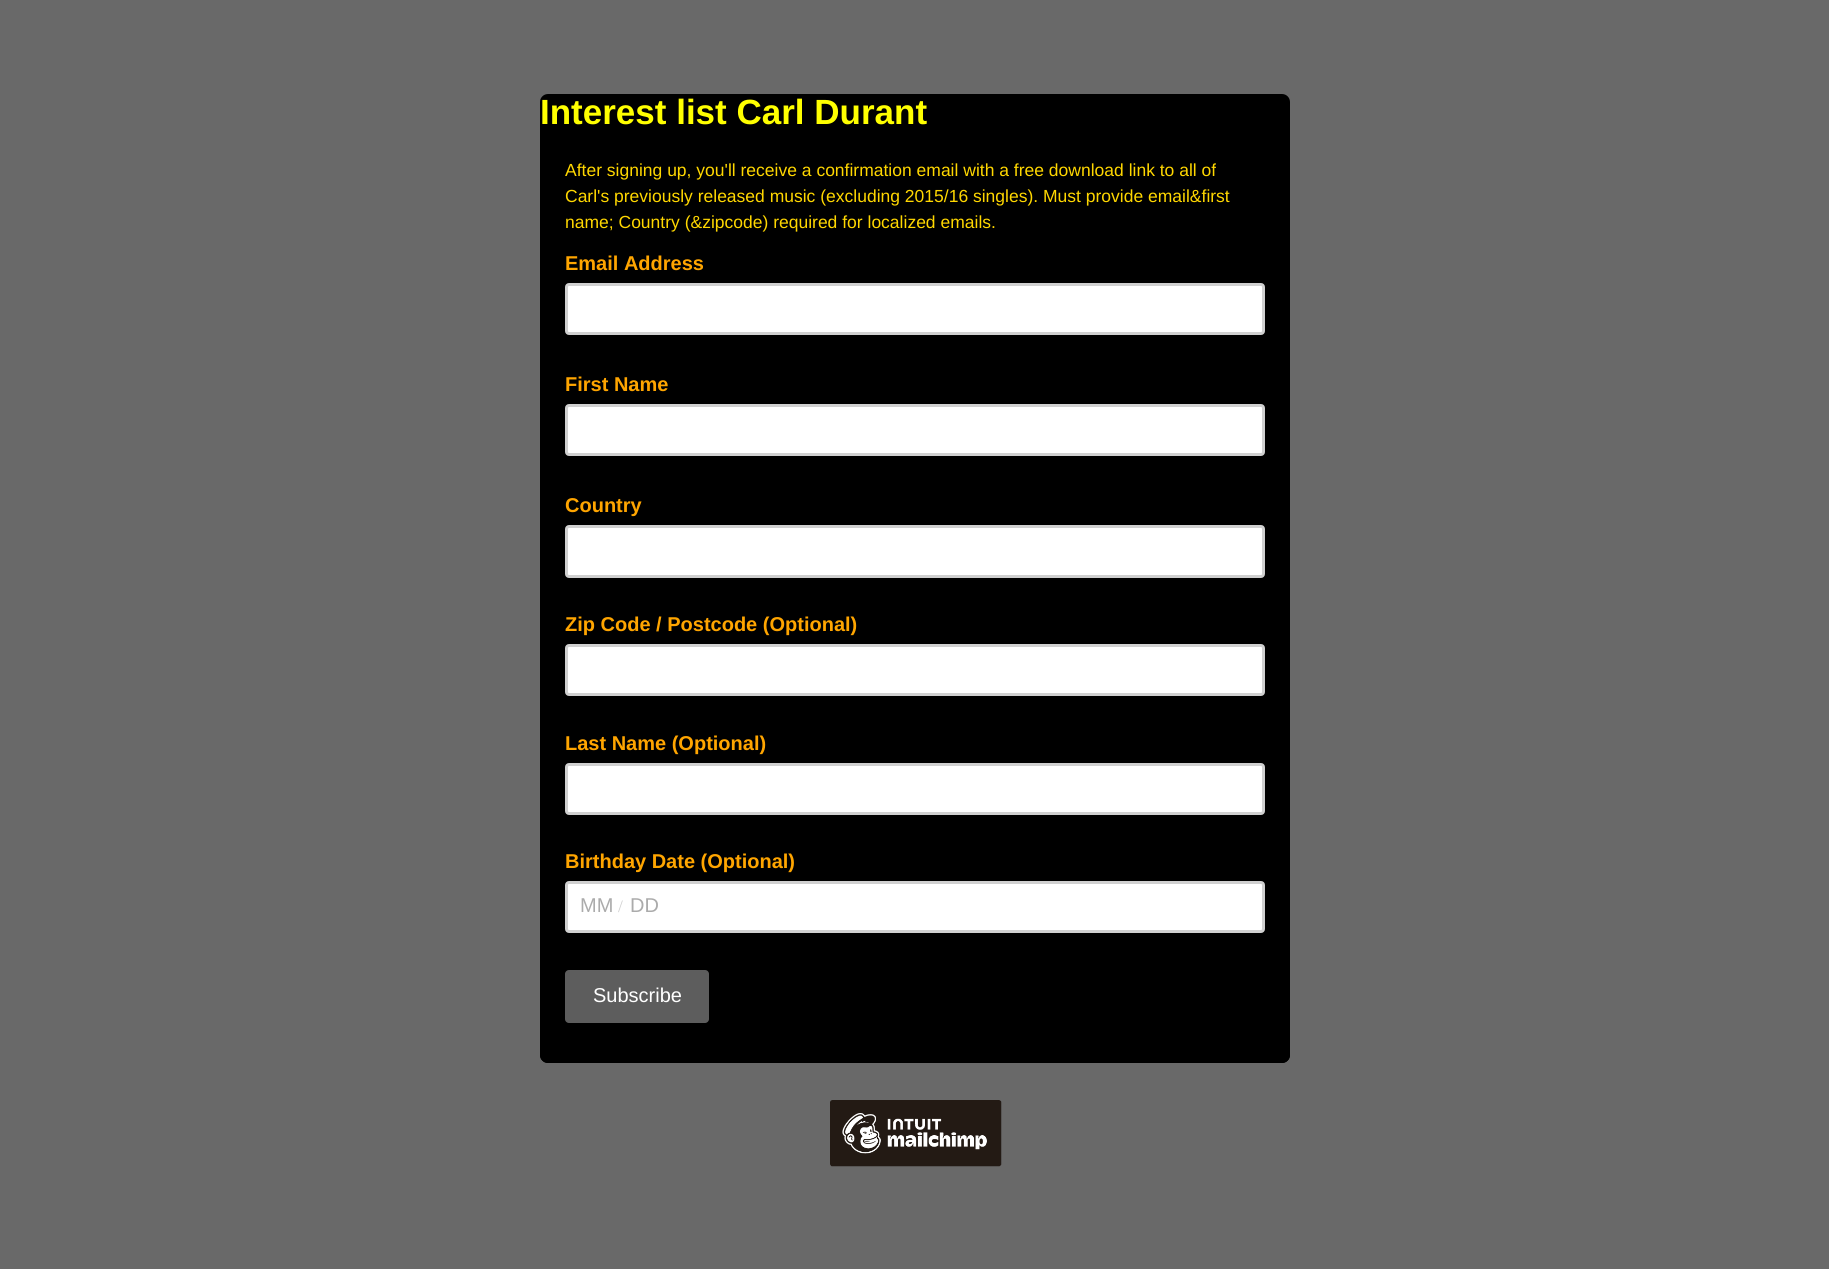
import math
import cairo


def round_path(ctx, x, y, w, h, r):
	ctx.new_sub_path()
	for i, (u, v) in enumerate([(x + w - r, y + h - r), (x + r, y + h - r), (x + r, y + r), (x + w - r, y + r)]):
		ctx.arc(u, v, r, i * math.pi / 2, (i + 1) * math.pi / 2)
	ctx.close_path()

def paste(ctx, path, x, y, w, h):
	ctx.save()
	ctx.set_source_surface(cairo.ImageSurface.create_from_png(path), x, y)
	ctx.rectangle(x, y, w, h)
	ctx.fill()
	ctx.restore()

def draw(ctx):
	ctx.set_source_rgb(0.412, 0.412, 0.412)
	ctx.paint()
	ctx.set_source_rgb(0, 0, 0)
	round_path(ctx, 540, 94, 750, 969, 8)
	ctx.fill()
	ctx.select_font_face('Liberation Sans', cairo.FONT_SLANT_NORMAL, cairo.FONT_WEIGHT_BOLD)
	ctx.set_font_size(35)
	ctx.set_source_rgb(1, 1, 0)
	ctx.move_to(540, 124)
	ctx.show_text('Interest list Carl Durant')
	ctx.set_source_rgb(0, 0, 0)
	round_path(ctx, 540, 133, 750, 930, 8)
	ctx.fill()
	ctx.select_font_face('Liberation Sans')
	ctx.set_font_size(17.5)
	ctx.set_source_rgb(1, 0.843, 0)
	for x, y, s in [
		(565, 176, 'After signing up, you\'ll receive a confirmation email with a free download link to all of'),
		(565, 202, 'Carl\'s previously released music (excluding 2015/16 singles). Must provide email&first'),
		(565, 228, 'name; Country (&zipcode) required for localized emails.'),
	]:
		ctx.move_to(x, y)
		ctx.show_text(s)
	ctx.select_font_face('Liberation Sans', cairo.FONT_SLANT_NORMAL, cairo.FONT_WEIGHT_BOLD)
	ctx.set_font_size(20)
	ctx.set_source_rgb(1, 0.647, 0)
	ctx.move_to(565, 270)
	ctx.show_text('Email Address')
	ctx.set_source_rgb(1, 1, 1)
	round_path(ctx, 566.5, 284.5, 697, 49, 2.5)
	ctx.fill_preserve()
	ctx.set_source_rgb(0.816, 0.816, 0.816)
	ctx.set_line_width(3)
	ctx.stroke()
	ctx.set_source_rgb(1, 0.647, 0)
	ctx.move_to(565, 391)
	ctx.show_text('First Name')
	ctx.set_source_rgb(1, 1, 1)
	round_path(ctx, 566.5, 405.5, 697, 49, 2.5)
	ctx.fill_preserve()
	ctx.set_source_rgb(0.816, 0.816, 0.816)
	ctx.stroke()
	ctx.set_source_rgb(1, 0.647, 0)
	ctx.move_to(565, 512)
	ctx.show_text('Country')
	ctx.set_source_rgb(1, 1, 1)
	round_path(ctx, 566.5, 526.5, 697, 50, 2.5)
	ctx.fill_preserve()
	ctx.set_source_rgb(0.816, 0.816, 0.816)
	ctx.stroke()
	ctx.set_source_rgb(1, 0.647, 0)
	ctx.move_to(565, 631)
	ctx.show_text('Zip Code / Postcode (Optional)')
	ctx.set_source_rgb(1, 1, 1)
	round_path(ctx, 566.5, 645.5, 697, 49, 2.5)
	ctx.fill_preserve()
	ctx.set_source_rgb(0.816, 0.816, 0.816)
	ctx.stroke()
	ctx.set_source_rgb(1, 0.647, 0)
	ctx.move_to(565, 750)
	ctx.show_text('Last Name (Optional)')
	ctx.set_source_rgb(1, 1, 1)
	round_path(ctx, 566.5, 764.5, 697, 49, 2.5)
	ctx.fill_preserve()
	ctx.set_source_rgb(0.816, 0.816, 0.816)
	ctx.stroke()
	ctx.set_source_rgb(1, 0.647, 0)
	ctx.move_to(565, 868)
	ctx.show_text('Birthday Date (Optional)')
	ctx.set_source_rgb(1, 1, 1)
	round_path(ctx, 566.5, 882.5, 697, 49, 2.5)
	ctx.fill_preserve()
	ctx.set_source_rgb(0.816, 0.816, 0.816)
	ctx.stroke()
	ctx.select_font_face('Liberation Sans')
	ctx.set_source_rgb(0.671, 0.671, 0.671)
	ctx.move_to(580, 912)
	ctx.show_text('MM')
	ctx.select_font_face('Liberation Serif')
	ctx.set_font_size(17.5)
	ctx.set_source_rgb(0.816, 0.816, 0.816)
	ctx.move_to(618, 912)
	ctx.show_text('/')
	ctx.select_font_face('Liberation Sans')
	ctx.set_font_size(20)
	ctx.set_source_rgb(0.671, 0.671, 0.671)
	ctx.move_to(630, 912)
	ctx.show_text('DD')
	ctx.set_source_rgb(0.365, 0.365, 0.365)
	round_path(ctx, 565, 970, 144, 53, 4)
	ctx.fill()
	ctx.set_source_rgb(1, 1, 1)
	ctx.move_to(593, 1002)
	ctx.show_text('Subscribe')
	paste(ctx, 'media/1.png', 830, 1100, 172, 67)


surface = cairo.ImageSurface(cairo.FORMAT_RGB24, 1829, 1269)
ctx = cairo.Context(surface)
options = cairo.FontOptions()
options.set_hint_metrics(cairo.HINT_METRICS_OFF)
options.set_hint_style(cairo.HINT_STYLE_NONE)
ctx.set_font_options(options)
ctx.set_miter_limit(4)
draw(ctx)
surface.write_to_png('image.png')
